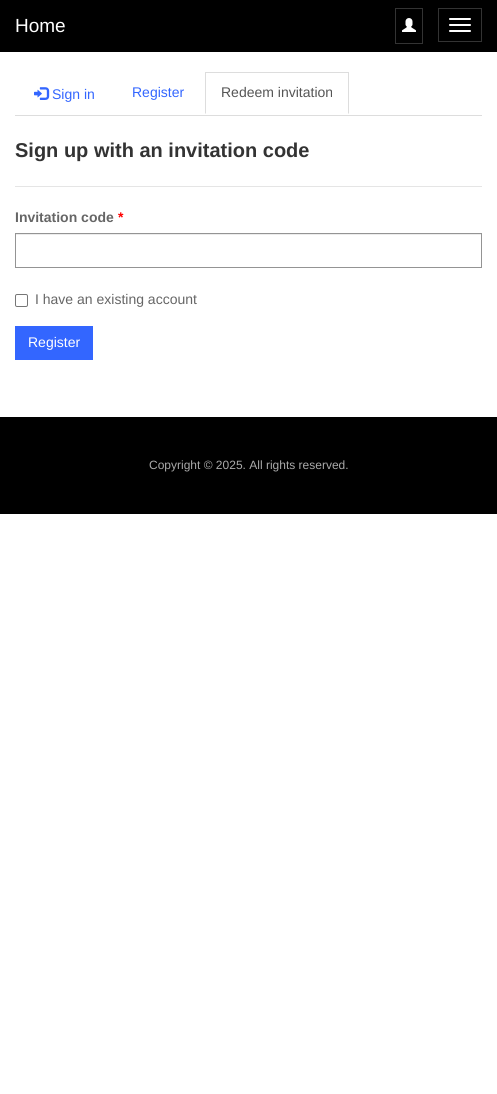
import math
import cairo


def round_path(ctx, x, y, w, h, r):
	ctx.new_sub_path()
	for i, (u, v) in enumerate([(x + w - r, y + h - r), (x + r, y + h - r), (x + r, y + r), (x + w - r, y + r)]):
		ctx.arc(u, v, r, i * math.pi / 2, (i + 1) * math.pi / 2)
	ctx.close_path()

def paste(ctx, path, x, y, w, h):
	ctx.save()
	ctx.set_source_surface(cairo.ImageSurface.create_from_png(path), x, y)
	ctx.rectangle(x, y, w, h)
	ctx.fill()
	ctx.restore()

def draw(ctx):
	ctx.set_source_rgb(1, 1, 1)
	ctx.paint()
	ctx.set_source_rgb(0, 0, 0)
	ctx.rectangle(0, 0, 497, 52)
	ctx.fill()
	ctx.select_font_face('Liberation Sans')
	ctx.set_font_size(19)
	ctx.set_source_rgb(1, 1, 1)
	ctx.move_to(15, 32)
	ctx.show_text('Home')
	ctx.rectangle(395.5, 8.5, 27, 35)
	ctx.set_source_rgb(0.2, 0.2, 0.2)
	ctx.set_line_width(1)
	ctx.stroke()
	paste(ctx, 'media/1.png', 402, 18, 14, 14)
	ctx.rectangle(438.5, 8.5, 43, 33)
	ctx.stroke()
	ctx.set_source_rgb(1, 1, 1)
	round_path(ctx, 449, 18, 22, 2, 1)
	ctx.fill()
	round_path(ctx, 449, 24, 22, 2, 1)
	ctx.fill()
	round_path(ctx, 449, 30, 22, 2, 1)
	ctx.fill()
	ctx.set_source_rgb(0.867, 0.867, 0.867)
	ctx.rectangle(15, 115, 467, 1)
	ctx.fill()
	paste(ctx, 'media/2.png', 34, 87, 16, 13)
	ctx.set_font_size(14)
	ctx.set_source_rgb(0.2, 0.4, 1)
	ctx.move_to(52, 99)
	ctx.show_text('Sign in')
	ctx.move_to(132, 97)
	ctx.show_text('Register')
	ctx.set_source_rgb(0.867, 0.867, 0.867)
	ctx.rectangle(205, 72, 144, 1)
	ctx.fill()
	ctx.new_path()
	ctx.move_to(349, 72)
	ctx.line_to(349, 114)
	ctx.line_to(348, 113)
	ctx.line_to(348, 73)
	ctx.close_path()
	ctx.fill()
	ctx.new_path()
	ctx.move_to(205, 114)
	ctx.line_to(205, 72)
	ctx.line_to(206, 73)
	ctx.line_to(206, 113)
	ctx.close_path()
	ctx.fill()
	ctx.set_source_rgb(0.333, 0.333, 0.333)
	ctx.move_to(221, 97)
	ctx.show_text('Redeem invitation')
	ctx.set_source_rgb(0.898, 0.898, 0.898)
	ctx.rectangle(15, 186, 467, 1)
	ctx.fill()
	ctx.select_font_face('Liberation Sans', cairo.FONT_SLANT_NORMAL, cairo.FONT_WEIGHT_BOLD)
	ctx.set_font_size(20)
	ctx.set_source_rgb(0.2, 0.2, 0.2)
	ctx.move_to(15, 157)
	ctx.show_text('Sign up with an invitation code')
	ctx.set_font_size(14)
	ctx.set_source_rgb(0.4, 0.4, 0.4)
	ctx.move_to(15, 222)
	ctx.show_text('Invitation code')
	ctx.set_source_rgb(1, 0, 0)
	ctx.move_to(118, 222)
	ctx.show_text('*')
	ctx.set_source_rgb(0.925, 0.925, 0.925)
	ctx.rectangle(16, 234, 465, 1)
	ctx.fill()
	ctx.rectangle(15.5, 233.5, 466, 34)
	ctx.set_source_rgb(0.58, 0.58, 0.58)
	ctx.stroke()
	round_path(ctx, 15.5, 294.5, 12, 12, 1.5)
	ctx.set_source_rgb(0.463, 0.463, 0.463)
	ctx.stroke()
	ctx.select_font_face('Liberation Sans')
	ctx.set_source_rgb(0.4, 0.4, 0.4)
	ctx.move_to(35, 304)
	ctx.show_text('I have an existing account')
	ctx.set_source_rgb(0.2, 0.4, 1)
	ctx.rectangle(15, 326, 78, 34)
	ctx.fill()
	ctx.set_source_rgb(1, 1, 1)
	ctx.move_to(28, 347)
	ctx.show_text('Register')
	ctx.set_source_rgb(0, 0, 0)
	ctx.rectangle(0, 417, 497, 97)
	ctx.fill()
	ctx.set_font_size(12)
	ctx.set_source_rgb(0.667, 0.667, 0.667)
	ctx.move_to(149, 469)
	ctx.show_text('Copyright © 2025. All rights reserved.')


surface = cairo.ImageSurface(cairo.FORMAT_RGB24, 497, 1094)
ctx = cairo.Context(surface)
options = cairo.FontOptions()
options.set_hint_metrics(cairo.HINT_METRICS_OFF)
options.set_hint_style(cairo.HINT_STYLE_NONE)
ctx.set_font_options(options)
ctx.set_miter_limit(4)
draw(ctx)
surface.write_to_png('image.png')
